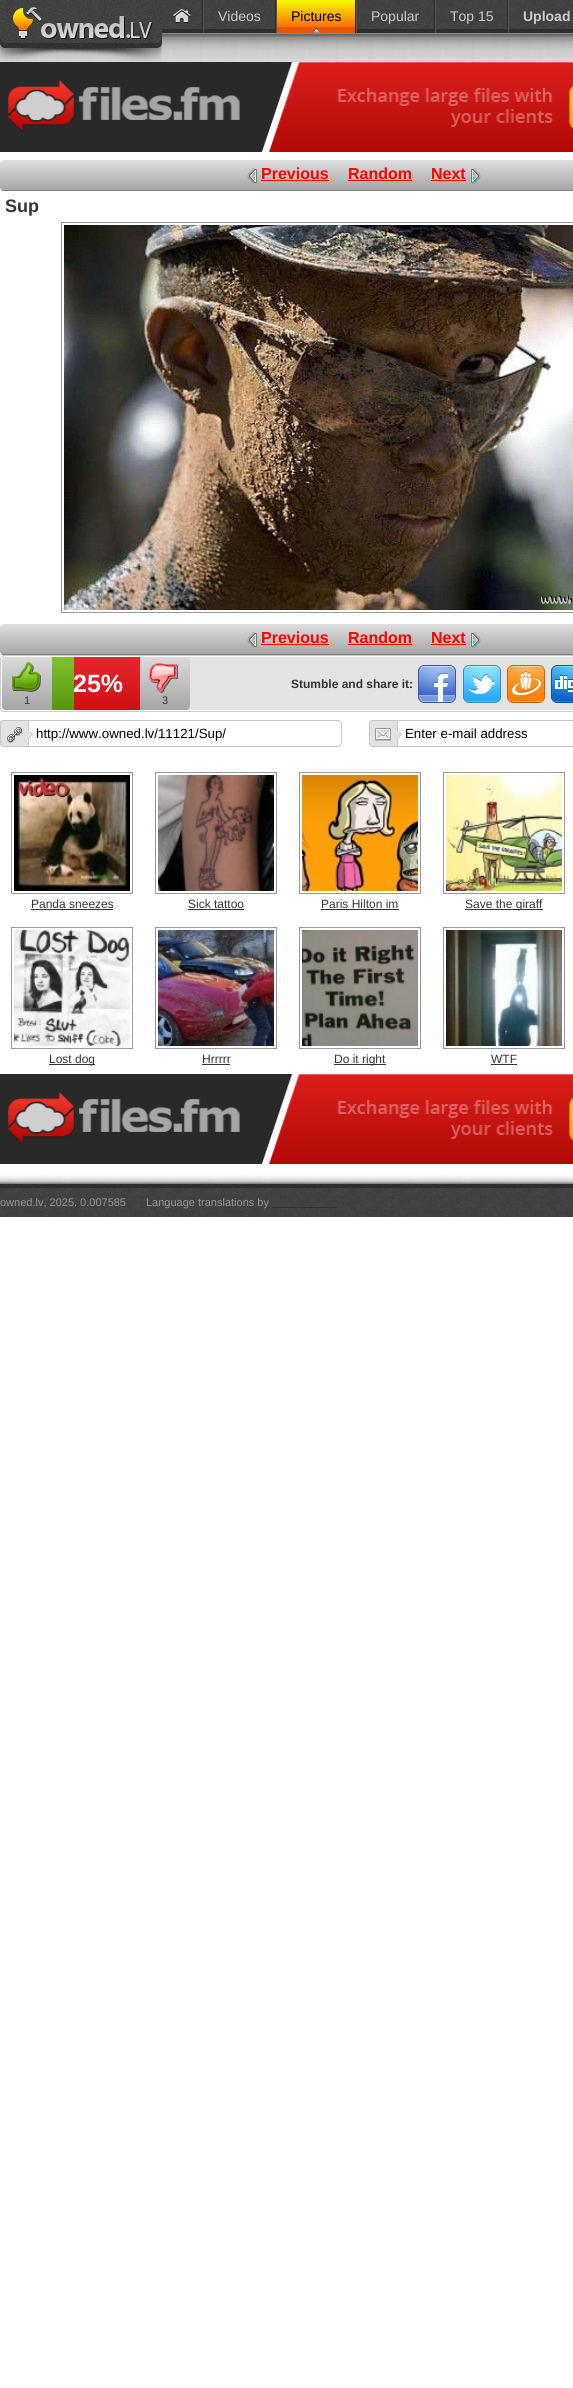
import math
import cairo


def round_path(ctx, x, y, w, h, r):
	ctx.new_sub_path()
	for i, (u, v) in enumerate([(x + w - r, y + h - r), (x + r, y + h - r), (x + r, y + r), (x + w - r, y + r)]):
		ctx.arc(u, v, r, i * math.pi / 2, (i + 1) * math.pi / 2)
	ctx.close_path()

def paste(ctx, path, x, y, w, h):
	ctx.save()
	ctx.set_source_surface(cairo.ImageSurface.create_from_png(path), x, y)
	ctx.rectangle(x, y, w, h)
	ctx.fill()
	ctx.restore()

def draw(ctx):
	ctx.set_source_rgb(1, 1, 1)
	ctx.paint()
	paste(ctx, 'media/1.png', 162, 0, 411, 62)
	paste(ctx, 'media/2.png', 0, 0, 162, 62)
	ctx.set_source_rgb(0.169, 0.169, 0.169)
	ctx.rectangle(202, 0, 1, 33)
	ctx.fill()
	paste(ctx, 'media/3.png', 173, 9, 18, 14)
	ctx.rectangle(275, 0, 1, 33)
	ctx.fill()
	ctx.set_source_rgb(0.329, 0.329, 0.329)
	ctx.rectangle(203, 0, 1, 33)
	ctx.fill()
	ctx.select_font_face('Liberation Sans')
	ctx.set_font_size(14)
	ctx.set_source_rgb(0.8, 0.8, 0.8)
	ctx.move_to(218, 21)
	ctx.show_text('Videos')
	ctx.set_source_rgb(0.169, 0.169, 0.169)
	ctx.rectangle(355, 0, 1, 33)
	ctx.fill()
	ctx.set_source_rgb(0.329, 0.329, 0.329)
	ctx.rectangle(276, 0, 1, 33)
	ctx.fill()
	gradient = cairo.LinearGradient(316, 0, 316, 33)
	gradient.add_color_stop_rgba(0, 0.965, 0.988, 0, 1)
	gradient.add_color_stop_rgba(0.83, 0.996, 0.424, 0, 1)
	gradient.add_color_stop_rgba(0.83, 0.898, 0.337, 0, 1)
	ctx.set_source(gradient)
	ctx.rectangle(277, 0, 78, 33)
	ctx.fill()
	paste(ctx, 'media/4.png', 313, 26, 7, 7)
	ctx.set_source_rgb(0, 0, 0)
	ctx.move_to(291, 21)
	ctx.show_text('Pictures')
	ctx.set_source_rgb(0.169, 0.169, 0.169)
	ctx.rectangle(434, 0, 1, 33)
	ctx.fill()
	ctx.set_source_rgb(0.329, 0.329, 0.329)
	ctx.rectangle(356, 0, 1, 33)
	ctx.fill()
	ctx.set_source_rgb(0.8, 0.8, 0.8)
	ctx.move_to(371, 21)
	ctx.show_text('Popular')
	ctx.set_source_rgb(0.169, 0.169, 0.169)
	ctx.rectangle(507, 0, 1, 33)
	ctx.fill()
	ctx.set_source_rgb(0.329, 0.329, 0.329)
	ctx.rectangle(435, 0, 1, 33)
	ctx.fill()
	ctx.set_source_rgb(0.8, 0.8, 0.8)
	ctx.move_to(450, 21)
	ctx.show_text('Top 15')
	ctx.set_source_rgb(0.329, 0.329, 0.329)
	ctx.rectangle(508, 0, 1, 33)
	ctx.fill()
	ctx.select_font_face('Liberation Sans', cairo.FONT_SLANT_NORMAL, cairo.FONT_WEIGHT_BOLD)
	ctx.set_source_rgb(0.8, 0.8, 0.8)
	ctx.move_to(523, 21)
	ctx.show_text('Upload')
	paste(ctx, 'media/5.png', 0, 62, 573, 90)
	ctx.save()
	round_path(ctx, 0, 160, 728, 31, 4)
	ctx.clip()
	gradient = cairo.LinearGradient(364, 160, 364, 190)
	gradient.add_color_stop_rgba(0.02, 0.867, 0.867, 0.867, 1)
	gradient.add_color_stop_rgba(1, 0.651, 0.651, 0.651, 1)
	ctx.set_source(gradient)
	ctx.new_path()
	ctx.move_to(4, 160)
	ctx.line_to(573, 160)
	ctx.curve_to(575, 160, 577, 162, 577, 164)
	ctx.line_to(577, 190)
	ctx.line_to(0, 190)
	ctx.line_to(0, 164)
	ctx.curve_to(0, 162, 2, 160, 4, 160)
	ctx.close_path()
	ctx.fill()
	ctx.restore()
	ctx.set_source_rgb(0.494, 0.494, 0.494)
	ctx.rectangle(2, 190, 571, 1)
	ctx.fill()
	paste(ctx, 'media/6.png', 247, 168, 10, 16)
	ctx.set_font_size(16)
	ctx.set_source_rgb(1, 0, 0)
	ctx.move_to(261, 179)
	ctx.show_text('Previous')
	ctx.rectangle(261, 180, 68, 1)
	ctx.fill()
	ctx.move_to(348, 179)
	ctx.show_text('Random')
	ctx.rectangle(348, 180, 64, 1)
	ctx.fill()
	paste(ctx, 'media/7.png', 471, 168, 10, 16)
	ctx.move_to(431, 179)
	ctx.show_text('Next')
	ctx.rectangle(431, 180, 35, 1)
	ctx.fill()
	ctx.set_font_size(18)
	ctx.set_source_rgb(0.2, 0.2, 0.2)
	ctx.move_to(5, 212)
	ctx.show_text('Sup')
	ctx.rectangle(61.5, 222.5, 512, 390)
	ctx.set_source_rgb(0.6, 0.6, 0.6)
	ctx.set_line_width(1)
	ctx.stroke()
	paste(ctx, 'media/8.png', 64, 225, 509, 385)
	ctx.save()
	round_path(ctx, 0, 624, 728, 31, 4)
	ctx.clip()
	gradient = cairo.LinearGradient(364, 624, 364, 654)
	gradient.add_color_stop_rgba(0.02, 0.867, 0.867, 0.867, 1)
	gradient.add_color_stop_rgba(1, 0.651, 0.651, 0.651, 1)
	ctx.set_source(gradient)
	ctx.new_path()
	ctx.move_to(4, 624)
	ctx.line_to(573, 624)
	ctx.curve_to(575, 624, 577, 626, 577, 628)
	ctx.line_to(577, 654)
	ctx.line_to(0, 654)
	ctx.line_to(0, 628)
	ctx.curve_to(0, 626, 2, 624, 4, 624)
	ctx.close_path()
	ctx.fill()
	ctx.restore()
	ctx.set_source_rgb(0.494, 0.494, 0.494)
	ctx.rectangle(2, 654, 571, 1)
	ctx.fill()
	paste(ctx, 'media/6.png', 247, 632, 10, 16)
	ctx.set_font_size(16)
	ctx.set_source_rgb(1, 0, 0)
	ctx.move_to(261, 643)
	ctx.show_text('Previous')
	ctx.rectangle(261, 644, 68, 1)
	ctx.fill()
	ctx.move_to(348, 643)
	ctx.show_text('Random')
	ctx.rectangle(348, 644, 64, 1)
	ctx.fill()
	paste(ctx, 'media/7.png', 471, 632, 10, 16)
	ctx.move_to(431, 643)
	ctx.show_text('Next')
	ctx.rectangle(431, 644, 35, 1)
	ctx.fill()
	round_path(ctx, 0.5, 655.5, 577, 56, 3.5)
	ctx.set_source_rgb(0.8, 0.8, 0.8)
	ctx.stroke()
	ctx.set_source_rgb(0.89, 0.89, 0.89)
	round_path(ctx, 2, 657, 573, 53, 2)
	ctx.fill()
	gradient = cairo.LinearGradient(96, 657, 96, 710)
	gradient.add_color_stop_rgba(0, 0.898, 0.149, 0.18, 1)
	gradient.add_color_stop_rgba(1, 0.804, 0.063, 0.086, 1)
	ctx.set_source(gradient)
	ctx.rectangle(74, 657, 66, 53)
	ctx.fill()
	gradient = cairo.LinearGradient(63, 657, 63, 710)
	gradient.add_color_stop_rgba(0, 0.502, 0.761, 0.176, 1)
	gradient.add_color_stop_rgba(1, 0.341, 0.584, 0.063, 1)
	ctx.set_source(gradient)
	ctx.rectangle(52, 657, 22, 53)
	ctx.fill()
	ctx.set_font_size(25)
	ctx.set_source_rgb(1, 1, 1)
	ctx.move_to(73, 692)
	ctx.show_text('25%')
	gradient = cairo.LinearGradient(27, 657, 27, 710)
	gradient.add_color_stop_rgba(0, 0.855, 0.855, 0.855, 1)
	gradient.add_color_stop_rgba(1, 0.651, 0.651, 0.651, 1)
	ctx.set_source(gradient)
	ctx.new_path()
	ctx.move_to(6, 657)
	ctx.line_to(52, 657)
	ctx.line_to(52, 710)
	ctx.line_to(6, 710)
	ctx.curve_to(4, 710, 2, 708, 2, 706)
	ctx.line_to(2, 661)
	ctx.curve_to(2, 659, 4, 657, 6, 657)
	ctx.close_path()
	ctx.fill()
	paste(ctx, 'media/9.png', 11, 662, 30, 30)
	ctx.select_font_face('Liberation Sans')
	ctx.set_font_size(11)
	ctx.set_source_rgb(0.2, 0.2, 0.2)
	ctx.move_to(24, 704)
	ctx.show_text('1')
	gradient = cairo.LinearGradient(165, 657, 165, 710)
	gradient.add_color_stop_rgba(0, 0.855, 0.855, 0.855, 1)
	gradient.add_color_stop_rgba(1, 0.651, 0.651, 0.651, 1)
	ctx.set_source(gradient)
	ctx.new_path()
	ctx.move_to(140, 657)
	ctx.line_to(186, 657)
	ctx.curve_to(188, 657, 190, 659, 190, 661)
	ctx.line_to(190, 706)
	ctx.curve_to(190, 708, 188, 710, 186, 710)
	ctx.line_to(140, 710)
	ctx.close_path()
	ctx.fill()
	paste(ctx, 'media/10.png', 149, 663, 30, 30)
	ctx.set_source_rgb(0.2, 0.2, 0.2)
	ctx.move_to(162, 704)
	ctx.show_text('3')
	ctx.select_font_face('Liberation Sans', cairo.FONT_SLANT_NORMAL, cairo.FONT_WEIGHT_BOLD)
	ctx.set_font_size(12)
	ctx.move_to(291, 688)
	ctx.show_text('Stumble and share it:')
	paste(ctx, 'media/11.png', 418, 665, 38, 38)
	paste(ctx, 'media/12.png', 463, 665, 38, 38)
	paste(ctx, 'media/13.png', 507, 665, 38, 38)
	paste(ctx, 'media/14.png', 551, 665, 22, 38)
	paste(ctx, 'media/15.png', 0, 720, 33, 27)
	round_path(ctx, 0.5, 720.5, 341, 26, 3.5)
	ctx.set_source_rgb(0.776, 0.776, 0.776)
	ctx.stroke()
	ctx.select_font_face('Liberation Sans')
	ctx.set_font_size(13.3)
	ctx.set_source_rgb(0, 0, 0)
	ctx.move_to(36, 738)
	ctx.show_text('http://www.owned.lv/11121/Sup/')
	paste(ctx, 'media/16.png', 369, 720, 33, 27)
	round_path(ctx, 369.5, 720.5, 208, 26, 3.5)
	ctx.set_source_rgb(0.776, 0.776, 0.776)
	ctx.stroke()
	ctx.set_source_rgb(0, 0, 0)
	ctx.move_to(405, 738)
	ctx.show_text('Enter e-mail address')
	ctx.rectangle(11.5, 772.5, 121, 121)
	ctx.set_source_rgb(0.6, 0.6, 0.6)
	ctx.stroke()
	paste(ctx, 'media/17.png', 14, 775, 116, 116)
	ctx.set_font_size(12)
	ctx.set_source_rgb(0.2, 0.2, 0.2)
	ctx.move_to(31, 908)
	ctx.show_text('Panda sneezes')
	ctx.rectangle(31, 909, 82, 1)
	ctx.fill()
	ctx.rectangle(155.5, 772.5, 121, 121)
	ctx.set_source_rgb(0.6, 0.6, 0.6)
	ctx.stroke()
	paste(ctx, 'media/18.png', 158, 775, 116, 116)
	ctx.set_source_rgb(0.2, 0.2, 0.2)
	ctx.move_to(188, 908)
	ctx.show_text('Sick tattoo')
	ctx.rectangle(188, 909, 56, 1)
	ctx.fill()
	ctx.rectangle(299.5, 772.5, 121, 121)
	ctx.set_source_rgb(0.6, 0.6, 0.6)
	ctx.stroke()
	paste(ctx, 'media/19.png', 302, 775, 116, 116)
	ctx.set_source_rgb(0.2, 0.2, 0.2)
	ctx.move_to(321, 908)
	ctx.show_text('Paris Hilton im')
	ctx.rectangle(321, 909, 78, 1)
	ctx.fill()
	ctx.rectangle(443.5, 772.5, 121, 121)
	ctx.set_source_rgb(0.6, 0.6, 0.6)
	ctx.stroke()
	paste(ctx, 'media/20.png', 446, 775, 116, 116)
	ctx.set_source_rgb(0.2, 0.2, 0.2)
	ctx.rectangle(465, 909, 78, 1)
	ctx.fill()
	ctx.move_to(465, 908)
	ctx.show_text('Save the giraff')
	ctx.rectangle(11.5, 927.5, 121, 121)
	ctx.set_source_rgb(0.6, 0.6, 0.6)
	ctx.stroke()
	paste(ctx, 'media/21.png', 14, 930, 116, 116)
	ctx.set_source_rgb(0.2, 0.2, 0.2)
	ctx.rectangle(49, 1064, 46, 1)
	ctx.fill()
	ctx.move_to(49, 1063)
	ctx.show_text('Lost dog')
	ctx.rectangle(155.5, 927.5, 121, 121)
	ctx.set_source_rgb(0.6, 0.6, 0.6)
	ctx.stroke()
	paste(ctx, 'media/22.png', 158, 930, 116, 116)
	ctx.set_source_rgb(0.2, 0.2, 0.2)
	ctx.move_to(202, 1063)
	ctx.show_text('Hrrrrr')
	ctx.rectangle(202, 1064, 28, 1)
	ctx.fill()
	ctx.rectangle(299.5, 927.5, 121, 121)
	ctx.set_source_rgb(0.6, 0.6, 0.6)
	ctx.stroke()
	paste(ctx, 'media/23.png', 302, 930, 116, 116)
	ctx.set_source_rgb(0.2, 0.2, 0.2)
	ctx.rectangle(334, 1064, 52, 1)
	ctx.fill()
	ctx.move_to(334, 1063)
	ctx.show_text('Do it right')
	ctx.rectangle(443.5, 927.5, 121, 121)
	ctx.set_source_rgb(0.6, 0.6, 0.6)
	ctx.stroke()
	paste(ctx, 'media/24.png', 446, 930, 116, 116)
	ctx.set_source_rgb(0.2, 0.2, 0.2)
	ctx.move_to(491, 1063)
	ctx.show_text('WTF')
	ctx.rectangle(491, 1064, 26, 1)
	ctx.fill()
	paste(ctx, 'media/5.png', 0, 1074, 573, 90)
	paste(ctx, 'media/25.png', 0, 1175, 573, 42)
	ctx.set_font_size(11)
	ctx.set_source_rgb(0.6, 0.6, 0.6)
	ctx.move_to(0, 1206)
	ctx.show_text('owned.lv, 2025. 0.007585')
	ctx.move_to(146, 1206)
	ctx.show_text('Language translations by')
	ctx.set_source_rgb(0.2, 0.2, 0.2)
	ctx.rectangle(272, 1207, 65, 1)
	ctx.fill()


surface = cairo.ImageSurface(cairo.FORMAT_RGB24, 573, 2388)
ctx = cairo.Context(surface)
options = cairo.FontOptions()
options.set_hint_metrics(cairo.HINT_METRICS_OFF)
options.set_hint_style(cairo.HINT_STYLE_NONE)
ctx.set_font_options(options)
ctx.set_miter_limit(4)
draw(ctx)
surface.write_to_png('image.png')
